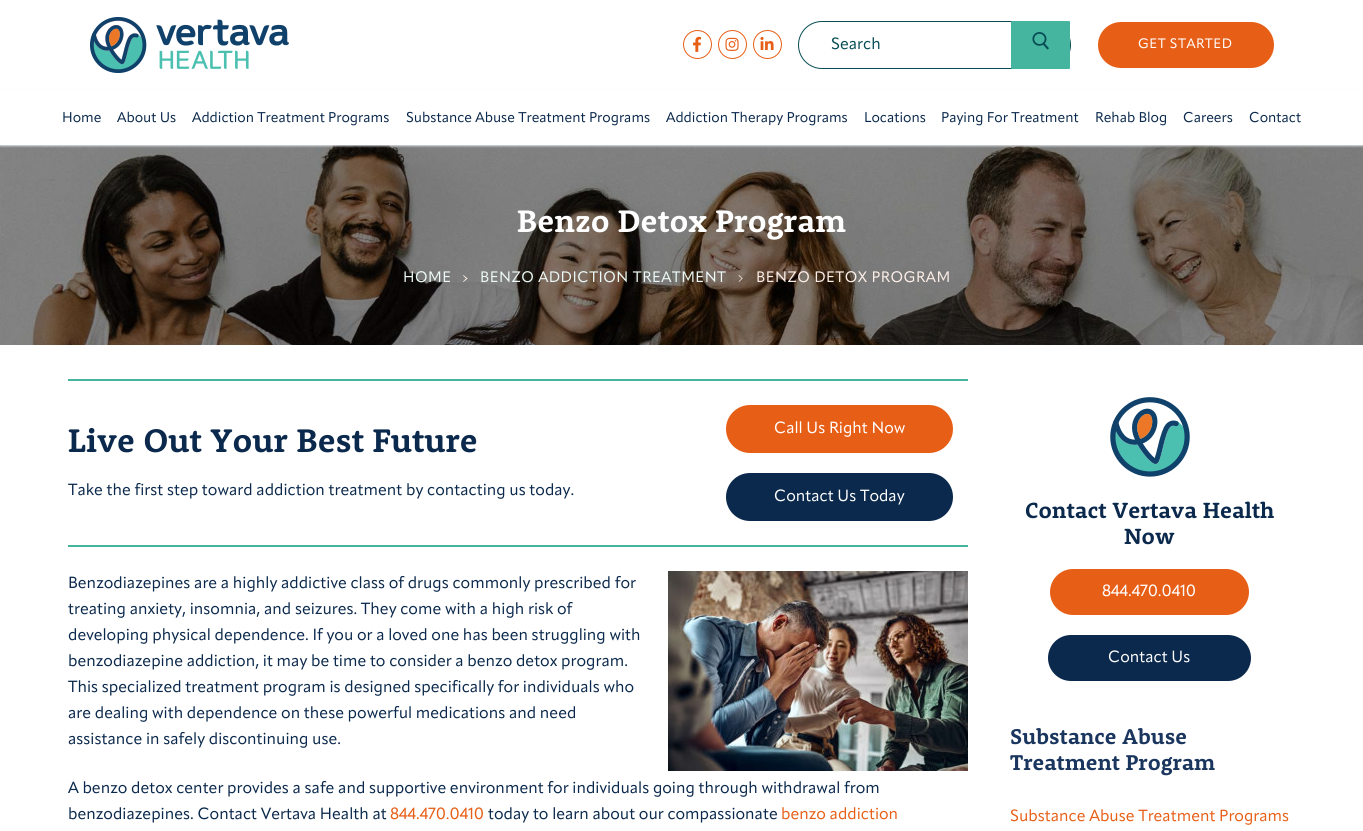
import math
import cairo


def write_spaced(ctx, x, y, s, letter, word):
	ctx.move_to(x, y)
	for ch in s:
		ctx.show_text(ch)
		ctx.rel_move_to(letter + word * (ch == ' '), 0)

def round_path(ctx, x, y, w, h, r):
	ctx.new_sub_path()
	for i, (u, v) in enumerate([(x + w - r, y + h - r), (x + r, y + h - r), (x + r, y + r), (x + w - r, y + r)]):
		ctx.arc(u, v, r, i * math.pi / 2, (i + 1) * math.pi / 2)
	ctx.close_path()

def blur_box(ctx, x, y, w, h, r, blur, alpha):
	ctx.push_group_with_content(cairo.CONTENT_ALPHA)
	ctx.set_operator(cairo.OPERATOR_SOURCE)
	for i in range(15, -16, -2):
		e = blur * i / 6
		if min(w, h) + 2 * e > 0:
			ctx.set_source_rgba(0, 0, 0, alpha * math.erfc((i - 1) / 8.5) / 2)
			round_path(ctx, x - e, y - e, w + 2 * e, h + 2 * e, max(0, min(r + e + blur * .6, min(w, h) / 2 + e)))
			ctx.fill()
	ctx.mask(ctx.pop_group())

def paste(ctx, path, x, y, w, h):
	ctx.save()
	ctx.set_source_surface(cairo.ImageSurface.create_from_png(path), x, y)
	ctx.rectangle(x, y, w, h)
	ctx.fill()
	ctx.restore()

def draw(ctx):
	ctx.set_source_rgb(1, 1, 1)
	ctx.paint()
	paste(ctx, 'media/1.png', 90, 17, 199, 56)
	ctx.arc(697.5, 44.5, 14, 0, 2 * math.pi)
	ctx.set_source_rgb(0.906, 0.373, 0.09)
	ctx.set_line_width(1)
	ctx.stroke()
	paste(ctx, 'media/2.png', 693, 36, 8, 16)
	ctx.arc(732.5, 44.5, 14, 0, 2 * math.pi)
	ctx.stroke()
	paste(ctx, 'media/3.png', 725, 37, 14, 14)
	ctx.arc(767.5, 44.5, 14, 0, 2 * math.pi)
	ctx.stroke()
	paste(ctx, 'media/4.png', 760, 36, 14, 14)
	round_path(ctx, 798.5, 21.5, 272, 47, 23.5)
	ctx.set_source_rgb(0.024, 0.298, 0.329)
	ctx.stroke()
	ctx.select_font_face('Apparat')
	ctx.set_font_size(16)
	ctx.move_to(831, 49)
	ctx.show_text('Search')
	ctx.set_source_rgb(0.271, 0.71, 0.627)
	round_path(ctx, 1011, 21, 59, 48, 1)
	ctx.fill()
	paste(ctx, 'media/5.png', 1032, 32, 17, 18)
	ctx.set_source_rgb(0.906, 0.373, 0.09)
	round_path(ctx, 1098, 22, 176, 46, 23)
	ctx.fill()
	ctx.set_font_size(13.5)
	ctx.set_source_rgb(1, 1, 1)
	write_spaced(ctx, 1138, 48, 'GET STARTED', 0.5, 0)
	paste(ctx, 'media/6.png', 0, 145, 1363, 200)
	ctx.set_source_rgb(0.882, 0.898, 0.918)
	blur_box(ctx, 0, 91, 1363, 55, 0, 1, 1)
	ctx.set_source_rgb(1, 1, 1)
	ctx.rectangle(0, 90, 1363, 55)
	ctx.fill()
	ctx.set_font_size(14)
	ctx.set_source_rgb(0.043, 0.161, 0.298)
	for x, y, s in [
		(62, 122, 'Home'),
		(117, 122, 'About Us'),
		(192, 122, 'Addiction Treatment Programs'),
		(406, 122, 'Substance Abuse Treatment Programs'),
		(666, 122, 'Addiction Therapy Programs'),
		(864, 122, 'Locations'),
		(941, 122, 'Paying For Treatment'),
		(1095, 122, 'Rehab Blog'),
		(1183, 122, 'Careers'),
		(1249, 122, 'Contact'),
	]:
		ctx.move_to(x, y)
		ctx.show_text(s)
	ctx.select_font_face('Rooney', cairo.FONT_SLANT_NORMAL, cairo.FONT_WEIGHT_BOLD)
	ctx.set_font_size(32)
	ctx.set_source_rgb(1, 1, 1)
	ctx.move_to(517, 232)
	ctx.show_text('Benzo Detox Program')
	ctx.select_font_face('Apparat')
	ctx.set_font_size(15)
	ctx.set_source_rgb(0.925, 0.973, 0.961)
	write_spaced(ctx, 403, 282, 'HOME', 0.5, 0)
	ctx.set_source_rgb(0.992, 0.937, 0.906)
	ctx.new_path()
	ctx.move_to(467.5, 278.5)
	ctx.line_to(463.5, 282)
	ctx.line_to(463, 281.5)
	ctx.line_to(466.5, 278)
	ctx.close_path()
	ctx.fill()
	ctx.new_path()
	ctx.move_to(467.5, 278.5)
	ctx.line_to(466.5, 279)
	ctx.line_to(463, 275.5)
	ctx.line_to(463.5, 275)
	ctx.close_path()
	ctx.fill()
	ctx.set_source_rgb(0.925, 0.973, 0.961)
	write_spaced(ctx, 480, 282, 'BENZO ADDICTION TREATMENT', 0.5, 0)
	ctx.set_source_rgb(0.992, 0.937, 0.906)
	ctx.new_path()
	ctx.move_to(742.5, 278.5)
	ctx.line_to(739, 282)
	ctx.line_to(738.5, 281.5)
	ctx.line_to(742, 278)
	ctx.close_path()
	ctx.fill()
	ctx.new_path()
	ctx.move_to(742.5, 278.5)
	ctx.line_to(742, 279)
	ctx.line_to(738.5, 275.5)
	ctx.line_to(739, 275)
	ctx.close_path()
	ctx.fill()
	write_spaced(ctx, 756, 282, 'BENZO DETOX PROGRAM', 0.5, 0)
	ctx.set_source_rgb(0.271, 0.71, 0.627)
	ctx.rectangle(68, 379, 900, 2)
	ctx.fill()
	ctx.select_font_face('Rooney', cairo.FONT_SLANT_NORMAL, cairo.FONT_WEIGHT_BOLD)
	ctx.set_font_size(33.6)
	ctx.set_source_rgb(0.043, 0.161, 0.298)
	ctx.move_to(68, 452)
	ctx.show_text('Live Out Your Best Future')
	ctx.select_font_face('Apparat')
	ctx.set_font_size(16)
	ctx.move_to(68, 495)
	ctx.show_text('Take the first step toward addiction treatment by contacting us today.')
	ctx.set_source_rgb(0.906, 0.373, 0.09)
	round_path(ctx, 726, 405, 227, 48, 24)
	ctx.fill()
	ctx.set_source_rgb(1, 1, 1)
	ctx.move_to(774, 433)
	ctx.show_text('Call Us Right Now')
	ctx.set_source_rgb(0.043, 0.161, 0.298)
	round_path(ctx, 726, 473, 227, 48, 24)
	ctx.fill()
	ctx.set_source_rgb(1, 1, 1)
	ctx.move_to(774, 501)
	ctx.show_text('Contact Us Today')
	ctx.set_source_rgb(0.271, 0.71, 0.627)
	ctx.rectangle(68, 545, 900, 2)
	ctx.fill()
	ctx.set_source_rgb(0.043, 0.161, 0.298)
	for x, y, s in [
		(68, 588, 'Benzodiazepines are a highly addictive class of drugs commonly prescribed for'),
		(68, 614, 'treating anxiety, insomnia, and seizures. They come with a high risk of'),
		(68, 640, 'developing physical dependence. If you or a loved one has been struggling with'),
		(68, 666, 'benzodiazepine addiction, it may be time to consider a benzo detox program.'),
		(68, 692, 'This specialized treatment program is designed specifically for individuals who'),
		(68, 718, 'are dealing with dependence on these powerful medications and need'),
		(68, 744, 'assistance in safely discontinuing use.'),
	]:
		ctx.move_to(x, y)
		ctx.show_text(s)
	paste(ctx, 'media/7.png', 668, 571, 300, 200)
	ctx.move_to(68, 793)
	ctx.show_text('A benzo detox center provides a safe and supportive environment for individuals going through withdrawal from')
	ctx.move_to(68, 819)
	ctx.show_text('benzodiazepines. Contact Vertava Health at')
	ctx.set_source_rgb(0.906, 0.373, 0.09)
	ctx.move_to(390, 819)
	ctx.show_text('844.470.0410')
	ctx.set_source_rgb(0.043, 0.161, 0.298)
	ctx.move_to(488, 819)
	ctx.show_text('today to learn about our compassionate')
	ctx.set_source_rgb(0.906, 0.373, 0.09)
	ctx.move_to(781, 819)
	ctx.show_text('benzo addiction')
	paste(ctx, 'media/8.png', 1110, 397, 80, 80)
	ctx.select_font_face('Rooney', cairo.FONT_SLANT_NORMAL, cairo.FONT_WEIGHT_BOLD)
	ctx.set_font_size(22.6)
	ctx.set_source_rgb(0.043, 0.161, 0.298)
	ctx.move_to(1025, 518)
	ctx.show_text('Contact Vertava Health')
	ctx.move_to(1124, 544)
	ctx.show_text('Now')
	ctx.set_source_rgb(0.906, 0.373, 0.09)
	round_path(ctx, 1050, 569, 199, 46, 23)
	ctx.fill()
	ctx.select_font_face('Apparat')
	ctx.set_font_size(16)
	ctx.set_source_rgb(1, 1, 1)
	ctx.move_to(1102, 596)
	ctx.show_text('844.470.0410')
	ctx.set_source_rgb(0.043, 0.161, 0.298)
	round_path(ctx, 1048, 635, 203, 46, 23)
	ctx.fill()
	ctx.set_source_rgb(1, 1, 1)
	ctx.move_to(1108, 662)
	ctx.show_text('Contact Us')
	ctx.select_font_face('Rooney', cairo.FONT_SLANT_NORMAL, cairo.FONT_WEIGHT_BOLD)
	ctx.set_font_size(22)
	ctx.set_source_rgb(0.102, 0.212, 0.369)
	ctx.move_to(1010, 744)
	ctx.show_text('Substance Abuse')
	ctx.move_to(1010, 770)
	ctx.show_text('Treatment Program')
	ctx.select_font_face('Apparat')
	ctx.set_font_size(16)
	ctx.set_source_rgb(0.906, 0.373, 0.09)
	ctx.move_to(1010, 821)
	ctx.show_text('Substance Abuse Treatment Programs')


surface = cairo.ImageSurface(cairo.FORMAT_RGB24, 1363, 831)
ctx = cairo.Context(surface)
options = cairo.FontOptions()
options.set_hint_metrics(cairo.HINT_METRICS_OFF)
options.set_hint_style(cairo.HINT_STYLE_NONE)
ctx.set_font_options(options)
ctx.set_miter_limit(4)
draw(ctx)
surface.write_to_png('image.png')
